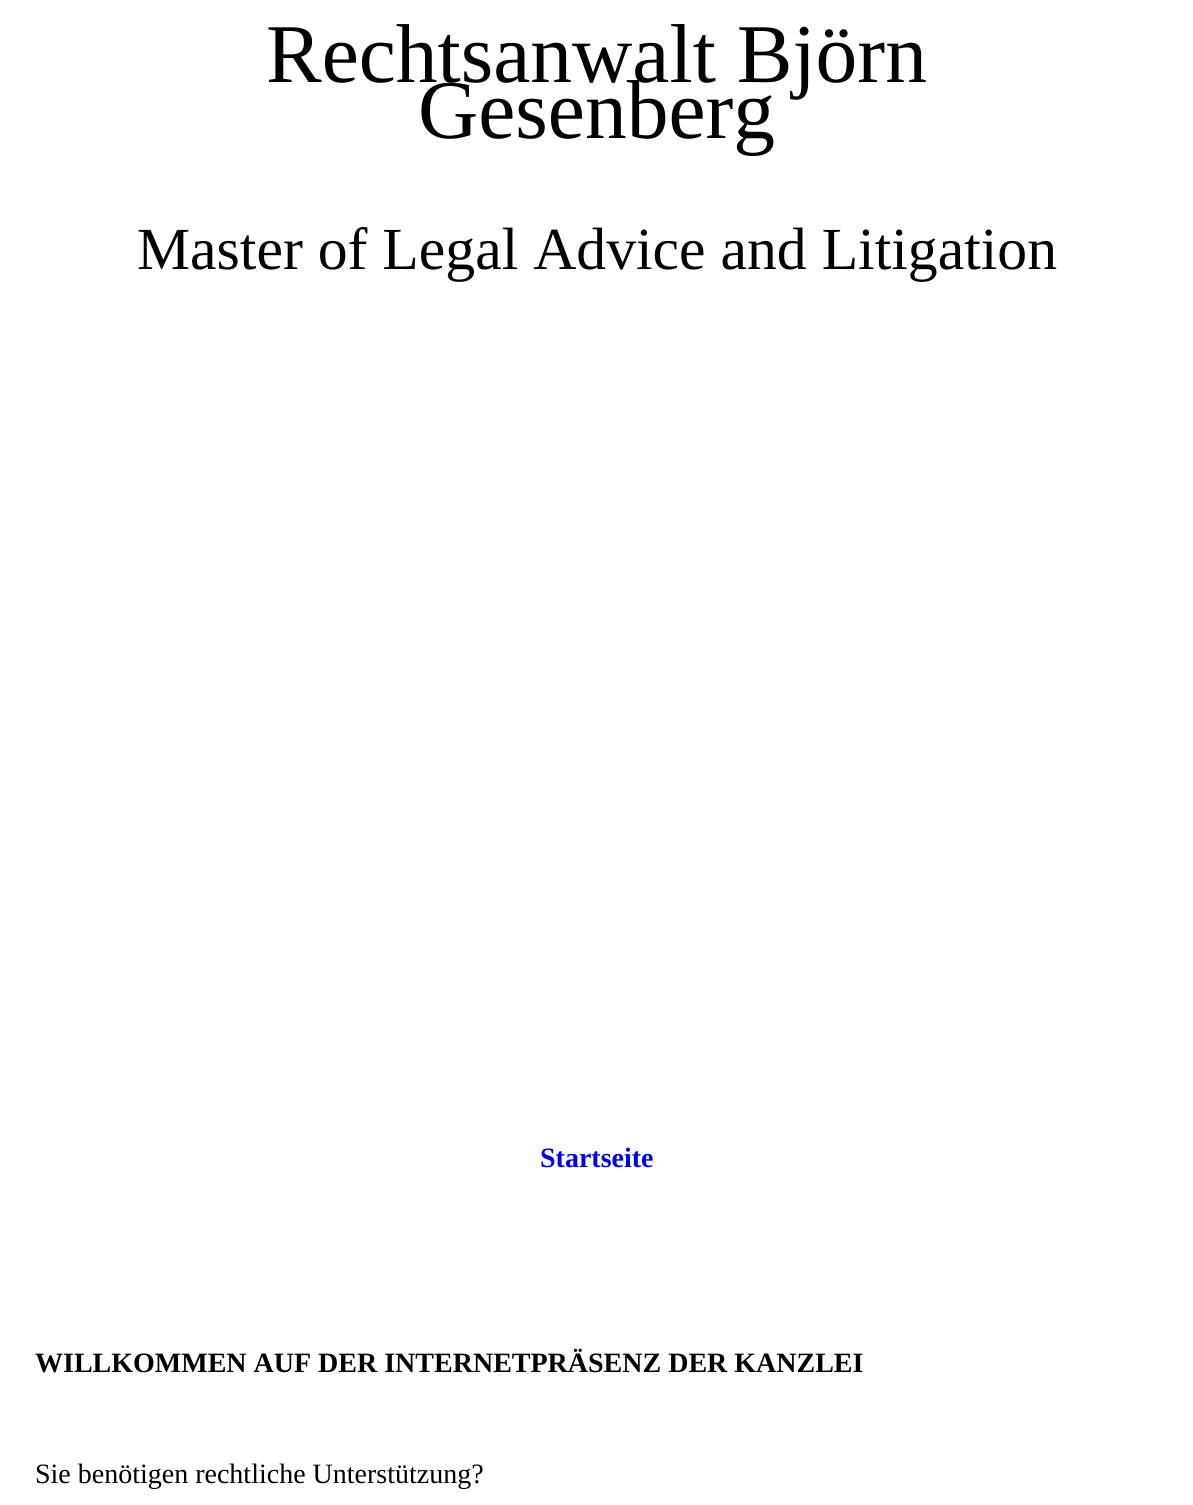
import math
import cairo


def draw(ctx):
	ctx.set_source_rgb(1, 1, 1)
	ctx.paint()
	ctx.select_font_face('Liberation Serif')
	ctx.set_font_size(83.5)
	ctx.set_source_rgb(0, 0, 0)
	ctx.move_to(266, 82)
	ctx.show_text('Rechtsanwalt Björn')
	ctx.move_to(418, 138)
	ctx.show_text('Gesenberg')
	ctx.set_font_size(59.7)
	ctx.move_to(137, 269)
	ctx.show_text('Master of Legal Advice and Litigation')
	ctx.select_font_face('Liberation Serif', cairo.FONT_SLANT_NORMAL, cairo.FONT_WEIGHT_BOLD)
	ctx.set_font_size(28)
	ctx.set_source_rgb(0, 0, 0.933)
	ctx.move_to(540, 1167)
	ctx.show_text('Startseite')
	ctx.set_source_rgb(0, 0, 0)
	ctx.move_to(35, 1372)
	ctx.show_text('WILLKOMMEN AUF DER INTERNETPRÄSENZ DER KANZLEI')
	ctx.select_font_face('Liberation Serif')
	ctx.move_to(35, 1483)
	ctx.show_text('Sie benötigen rechtliche Unterstützung?')


surface = cairo.ImageSurface(cairo.FORMAT_RGB24, 1193, 1505)
ctx = cairo.Context(surface)
options = cairo.FontOptions()
options.set_hint_metrics(cairo.HINT_METRICS_OFF)
options.set_hint_style(cairo.HINT_STYLE_NONE)
ctx.set_font_options(options)
ctx.set_miter_limit(4)
draw(ctx)
surface.write_to_png('image.png')
